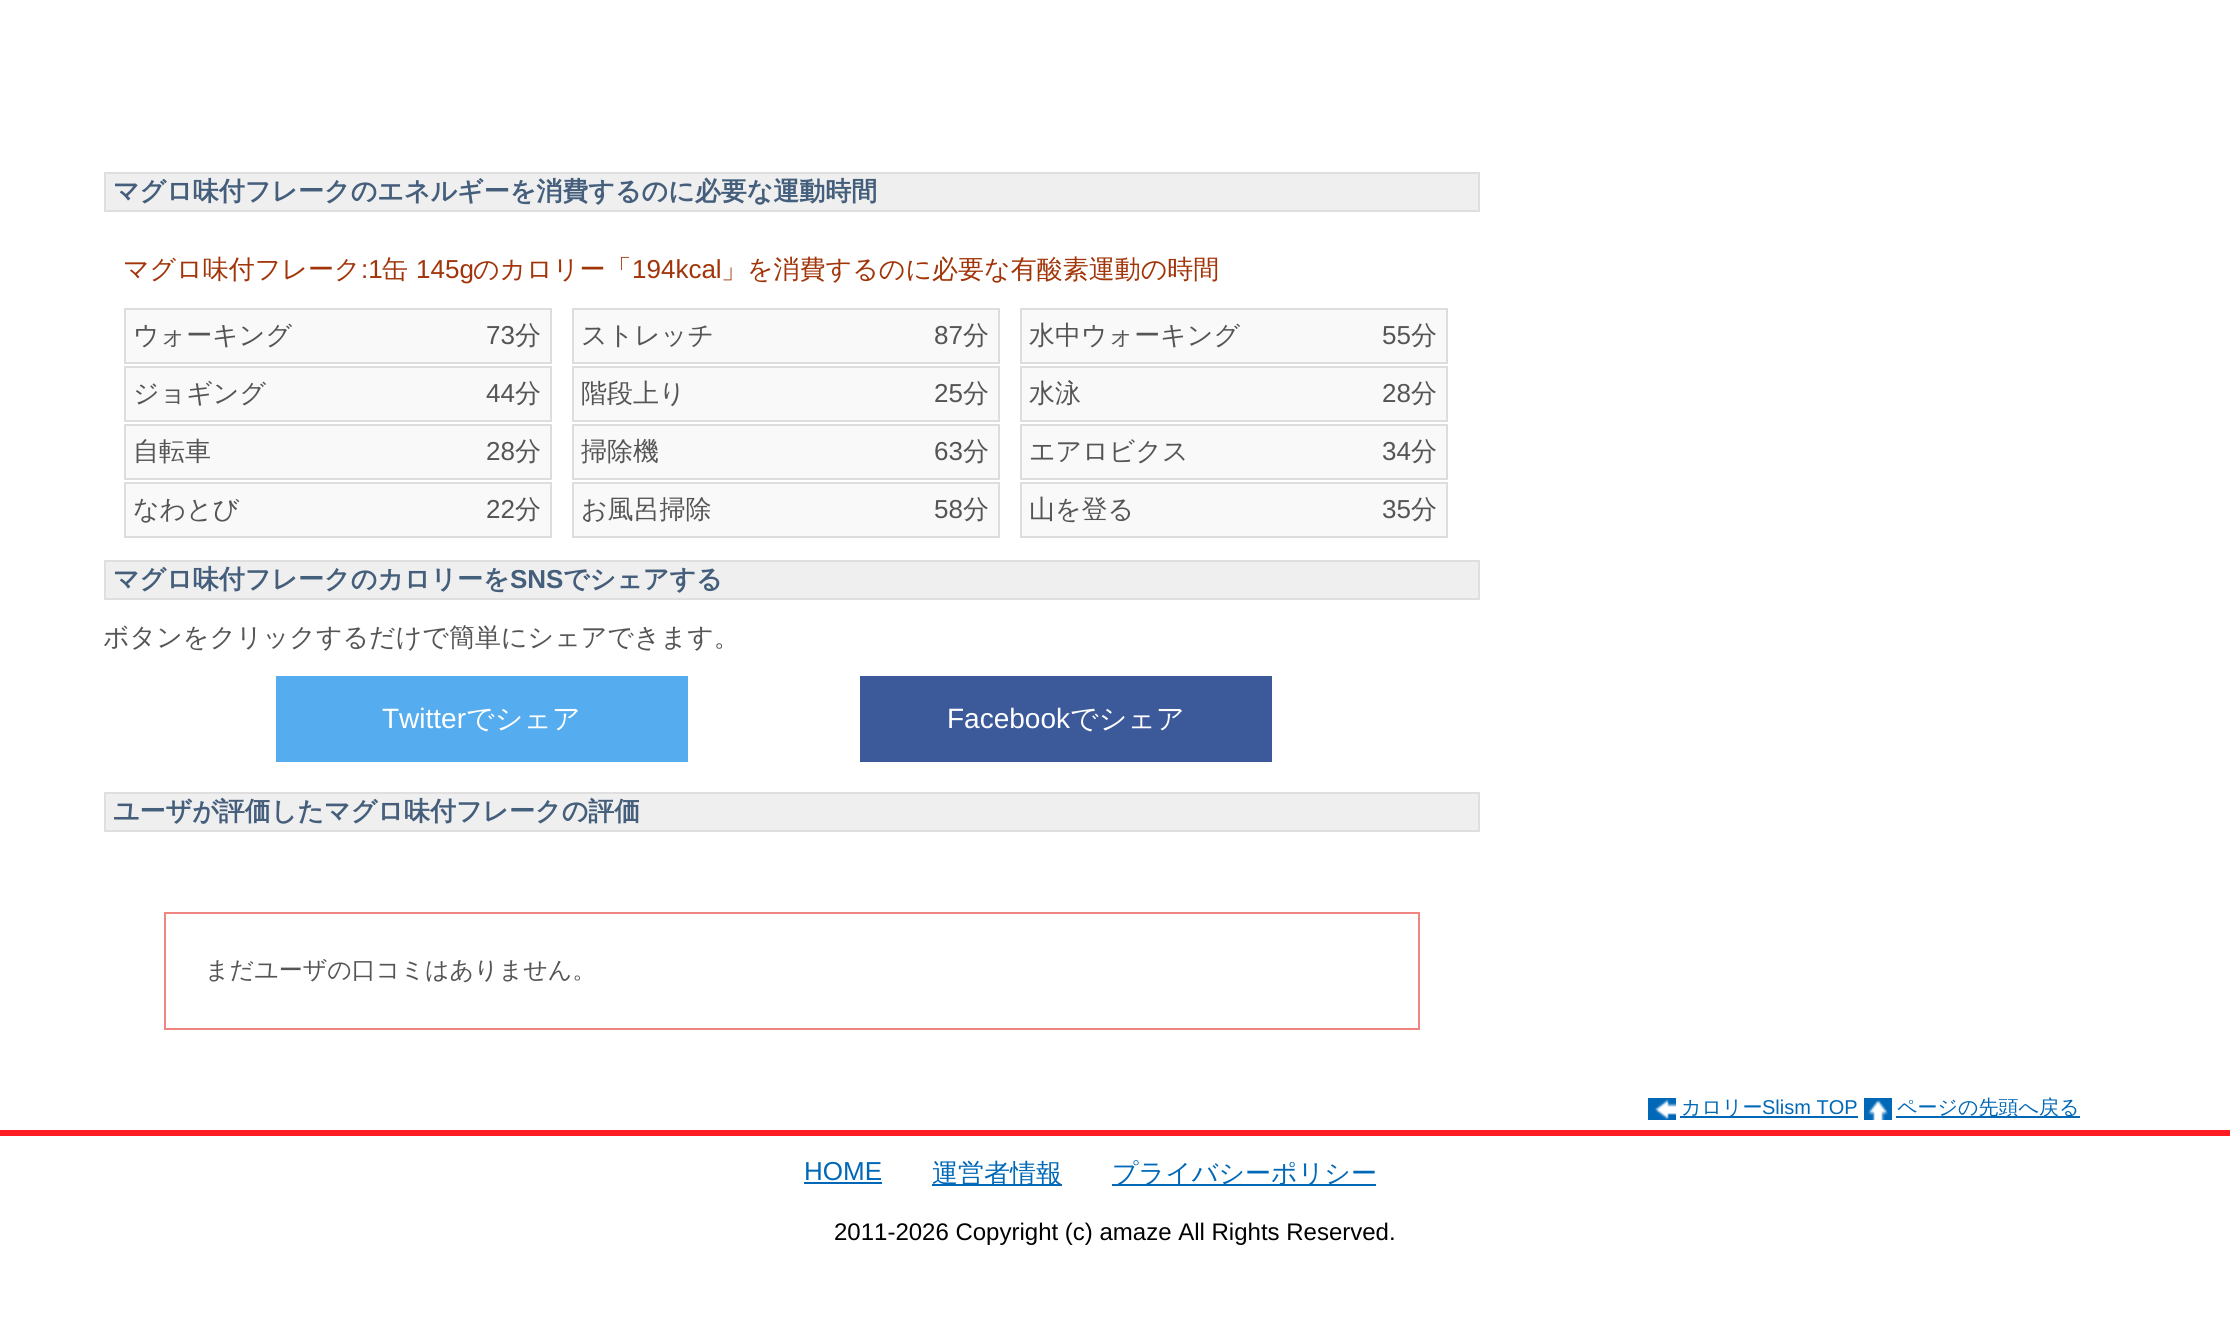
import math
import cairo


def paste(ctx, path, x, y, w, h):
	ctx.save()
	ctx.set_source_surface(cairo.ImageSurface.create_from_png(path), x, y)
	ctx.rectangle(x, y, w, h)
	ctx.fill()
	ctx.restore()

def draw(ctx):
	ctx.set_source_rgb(1, 1, 1)
	ctx.paint()
	ctx.set_source_rgb(0.937, 0.937, 0.937)
	ctx.rectangle(105, 173, 1374, 38)
	ctx.fill_preserve()
	ctx.set_source_rgb(0.875, 0.875, 0.875)
	ctx.stroke()
	ctx.select_font_face('WenQuanYi Zen Hei', cairo.FONT_SLANT_NORMAL, cairo.FONT_WEIGHT_BOLD)
	ctx.set_font_size(26)
	ctx.set_source_rgb(0.267, 0.369, 0.482)
	ctx.move_to(113, 200)
	ctx.show_text('マグロ味付フレークのエネルギーを消費するのに必要な運動時間')
	ctx.select_font_face('WenQuanYi Zen Hei Medium')
	ctx.set_source_rgb(0.631, 0.208, 0.039)
	ctx.move_to(123, 278)
	ctx.show_text('マグロ味付フレーク')
	ctx.select_font_face('Liberation Sans')
	ctx.move_to(361, 278)
	ctx.show_text(':1')
	ctx.select_font_face('WenQuanYi Zen Hei Medium')
	ctx.move_to(382, 278)
	ctx.show_text('缶')
	ctx.select_font_face('Liberation Sans')
	ctx.move_to(416, 278)
	ctx.show_text('145g')
	ctx.select_font_face('WenQuanYi Zen Hei Medium')
	ctx.move_to(473, 278)
	ctx.show_text('のカロリー「')
	ctx.select_font_face('Liberation Sans')
	ctx.move_to(632, 278)
	ctx.show_text('194kcal')
	ctx.select_font_face('WenQuanYi Zen Hei Medium')
	ctx.move_to(721, 278)
	ctx.show_text('」を消費するのに必要な有酸素運動の時間')
	ctx.set_source_rgb(0.973, 0.973, 0.973)
	ctx.rectangle(125, 309, 426, 54)
	ctx.fill_preserve()
	ctx.set_source_rgb(0.867, 0.867, 0.867)
	ctx.stroke()
	ctx.set_source_rgb(0.333, 0.333, 0.333)
	ctx.move_to(133, 344)
	ctx.show_text('ウォーキング')
	ctx.select_font_face('Liberation Sans')
	ctx.move_to(486, 344)
	ctx.show_text('73')
	ctx.select_font_face('WenQuanYi Zen Hei Medium')
	ctx.move_to(515, 344)
	ctx.show_text('分')
	ctx.set_source_rgb(0.973, 0.973, 0.973)
	ctx.rectangle(125, 367, 426, 54)
	ctx.fill_preserve()
	ctx.set_source_rgb(0.867, 0.867, 0.867)
	ctx.stroke()
	ctx.set_source_rgb(0.333, 0.333, 0.333)
	ctx.move_to(133, 402)
	ctx.show_text('ジョギング')
	ctx.select_font_face('Liberation Sans')
	ctx.move_to(486, 402)
	ctx.show_text('44')
	ctx.select_font_face('WenQuanYi Zen Hei Medium')
	ctx.move_to(515, 402)
	ctx.show_text('分')
	ctx.set_source_rgb(0.973, 0.973, 0.973)
	ctx.rectangle(125, 425, 426, 54)
	ctx.fill_preserve()
	ctx.set_source_rgb(0.867, 0.867, 0.867)
	ctx.stroke()
	ctx.set_source_rgb(0.333, 0.333, 0.333)
	ctx.move_to(133, 460)
	ctx.show_text('自転車')
	ctx.select_font_face('Liberation Sans')
	ctx.move_to(486, 460)
	ctx.show_text('28')
	ctx.select_font_face('WenQuanYi Zen Hei Medium')
	ctx.move_to(515, 460)
	ctx.show_text('分')
	ctx.set_source_rgb(0.973, 0.973, 0.973)
	ctx.rectangle(125, 483, 426, 54)
	ctx.fill_preserve()
	ctx.set_source_rgb(0.867, 0.867, 0.867)
	ctx.stroke()
	ctx.set_source_rgb(0.333, 0.333, 0.333)
	ctx.move_to(133, 518)
	ctx.show_text('なわとび')
	ctx.select_font_face('Liberation Sans')
	ctx.move_to(486, 518)
	ctx.show_text('22')
	ctx.select_font_face('WenQuanYi Zen Hei Medium')
	ctx.move_to(515, 518)
	ctx.show_text('分')
	ctx.set_source_rgb(0.973, 0.973, 0.973)
	ctx.rectangle(573, 309, 426, 54)
	ctx.fill_preserve()
	ctx.set_source_rgb(0.867, 0.867, 0.867)
	ctx.stroke()
	ctx.set_source_rgb(0.333, 0.333, 0.333)
	ctx.move_to(581, 344)
	ctx.show_text('ストレッチ')
	ctx.select_font_face('Liberation Sans')
	ctx.move_to(934, 344)
	ctx.show_text('87')
	ctx.select_font_face('WenQuanYi Zen Hei Medium')
	ctx.move_to(963, 344)
	ctx.show_text('分')
	ctx.set_source_rgb(0.973, 0.973, 0.973)
	ctx.rectangle(573, 367, 426, 54)
	ctx.fill_preserve()
	ctx.set_source_rgb(0.867, 0.867, 0.867)
	ctx.stroke()
	ctx.set_source_rgb(0.333, 0.333, 0.333)
	ctx.move_to(581, 402)
	ctx.show_text('階段上り')
	ctx.select_font_face('Liberation Sans')
	ctx.move_to(934, 402)
	ctx.show_text('25')
	ctx.select_font_face('WenQuanYi Zen Hei Medium')
	ctx.move_to(963, 402)
	ctx.show_text('分')
	ctx.set_source_rgb(0.973, 0.973, 0.973)
	ctx.rectangle(573, 425, 426, 54)
	ctx.fill_preserve()
	ctx.set_source_rgb(0.867, 0.867, 0.867)
	ctx.stroke()
	ctx.set_source_rgb(0.333, 0.333, 0.333)
	ctx.move_to(581, 460)
	ctx.show_text('掃除機')
	ctx.select_font_face('Liberation Sans')
	ctx.move_to(934, 460)
	ctx.show_text('63')
	ctx.select_font_face('WenQuanYi Zen Hei Medium')
	ctx.move_to(963, 460)
	ctx.show_text('分')
	ctx.set_source_rgb(0.973, 0.973, 0.973)
	ctx.rectangle(573, 483, 426, 54)
	ctx.fill_preserve()
	ctx.set_source_rgb(0.867, 0.867, 0.867)
	ctx.stroke()
	ctx.set_source_rgb(0.333, 0.333, 0.333)
	ctx.move_to(581, 518)
	ctx.show_text('お風呂掃除')
	ctx.select_font_face('Liberation Sans')
	ctx.move_to(934, 518)
	ctx.show_text('58')
	ctx.select_font_face('WenQuanYi Zen Hei Medium')
	ctx.move_to(963, 518)
	ctx.show_text('分')
	ctx.set_source_rgb(0.973, 0.973, 0.973)
	ctx.rectangle(1021, 309, 426, 54)
	ctx.fill_preserve()
	ctx.set_source_rgb(0.867, 0.867, 0.867)
	ctx.stroke()
	ctx.set_source_rgb(0.333, 0.333, 0.333)
	ctx.move_to(1029, 344)
	ctx.show_text('水中ウォーキング')
	ctx.select_font_face('Liberation Sans')
	ctx.move_to(1382, 344)
	ctx.show_text('55')
	ctx.select_font_face('WenQuanYi Zen Hei Medium')
	ctx.move_to(1411, 344)
	ctx.show_text('分')
	ctx.set_source_rgb(0.973, 0.973, 0.973)
	ctx.rectangle(1021, 367, 426, 54)
	ctx.fill_preserve()
	ctx.set_source_rgb(0.867, 0.867, 0.867)
	ctx.stroke()
	ctx.set_source_rgb(0.333, 0.333, 0.333)
	ctx.move_to(1029, 402)
	ctx.show_text('水泳')
	ctx.select_font_face('Liberation Sans')
	ctx.move_to(1382, 402)
	ctx.show_text('28')
	ctx.select_font_face('WenQuanYi Zen Hei Medium')
	ctx.move_to(1411, 402)
	ctx.show_text('分')
	ctx.set_source_rgb(0.973, 0.973, 0.973)
	ctx.rectangle(1021, 425, 426, 54)
	ctx.fill_preserve()
	ctx.set_source_rgb(0.867, 0.867, 0.867)
	ctx.stroke()
	ctx.set_source_rgb(0.333, 0.333, 0.333)
	ctx.move_to(1029, 460)
	ctx.show_text('エアロビクス')
	ctx.select_font_face('Liberation Sans')
	ctx.move_to(1382, 460)
	ctx.show_text('34')
	ctx.select_font_face('WenQuanYi Zen Hei Medium')
	ctx.move_to(1411, 460)
	ctx.show_text('分')
	ctx.set_source_rgb(0.973, 0.973, 0.973)
	ctx.rectangle(1021, 483, 426, 54)
	ctx.fill_preserve()
	ctx.set_source_rgb(0.867, 0.867, 0.867)
	ctx.stroke()
	ctx.set_source_rgb(0.333, 0.333, 0.333)
	ctx.move_to(1029, 518)
	ctx.show_text('山を登る')
	ctx.select_font_face('Liberation Sans')
	ctx.move_to(1382, 518)
	ctx.show_text('35')
	ctx.select_font_face('WenQuanYi Zen Hei Medium')
	ctx.move_to(1411, 518)
	ctx.show_text('分')
	ctx.set_source_rgb(0.937, 0.937, 0.937)
	ctx.rectangle(105, 561, 1374, 38)
	ctx.fill_preserve()
	ctx.set_source_rgb(0.875, 0.875, 0.875)
	ctx.stroke()
	ctx.select_font_face('WenQuanYi Zen Hei', cairo.FONT_SLANT_NORMAL, cairo.FONT_WEIGHT_BOLD)
	ctx.set_source_rgb(0.267, 0.369, 0.482)
	ctx.move_to(113, 588)
	ctx.show_text('マグロ味付フレークのカロリーを')
	ctx.select_font_face('Liberation Sans', cairo.FONT_SLANT_NORMAL, cairo.FONT_WEIGHT_BOLD)
	ctx.move_to(510, 588)
	ctx.show_text('SNS')
	ctx.select_font_face('WenQuanYi Zen Hei', cairo.FONT_SLANT_NORMAL, cairo.FONT_WEIGHT_BOLD)
	ctx.move_to(563, 588)
	ctx.show_text('でシェアする')
	ctx.select_font_face('WenQuanYi Zen Hei Medium')
	ctx.set_source_rgb(0.333, 0.333, 0.333)
	ctx.move_to(103, 646)
	ctx.show_text('ボタンをクリックするだけで簡単にシェアできます。')
	ctx.set_source_rgb(0.333, 0.675, 0.937)
	ctx.rectangle(276, 676, 412, 86)
	ctx.fill()
	ctx.select_font_face('Liberation Sans')
	ctx.set_font_size(28)
	ctx.set_source_rgb(1, 1, 1)
	ctx.move_to(382, 728)
	ctx.show_text('Twitter')
	ctx.select_font_face('WenQuanYi Zen Hei Medium')
	ctx.move_to(466, 728)
	ctx.show_text('でシェア')
	ctx.set_source_rgb(0.235, 0.353, 0.604)
	ctx.rectangle(860, 676, 412, 86)
	ctx.fill()
	ctx.select_font_face('Liberation Sans')
	ctx.set_source_rgb(1, 1, 1)
	ctx.move_to(947, 728)
	ctx.show_text('Facebook')
	ctx.select_font_face('WenQuanYi Zen Hei Medium')
	ctx.move_to(1070, 728)
	ctx.show_text('でシェア')
	ctx.set_source_rgb(0.937, 0.937, 0.937)
	ctx.rectangle(105, 793, 1374, 38)
	ctx.fill_preserve()
	ctx.set_source_rgb(0.875, 0.875, 0.875)
	ctx.stroke()
	ctx.select_font_face('WenQuanYi Zen Hei', cairo.FONT_SLANT_NORMAL, cairo.FONT_WEIGHT_BOLD)
	ctx.set_font_size(26)
	ctx.set_source_rgb(0.267, 0.369, 0.482)
	ctx.move_to(113, 820)
	ctx.show_text('ユーザが評価したマグロ味付フレークの評価')
	ctx.rectangle(165, 913, 1254, 116)
	ctx.set_source_rgb(0.937, 0.525, 0.51)
	ctx.stroke()
	ctx.select_font_face('WenQuanYi Zen Hei Medium')
	ctx.set_font_size(24)
	ctx.set_source_rgb(0.333, 0.333, 0.333)
	ctx.move_to(205, 978)
	ctx.show_text('まだユーザの口コミはありません。')
	ctx.set_source_rgb(1, 0.114, 0.137)
	ctx.rectangle(0, 1130, 2230, 6)
	ctx.fill()
	paste(ctx, 'media/1.png', 1648, 1098, 28, 22)
	ctx.set_source_rgb(0, 0.408, 0.718)
	ctx.rectangle(1680, 1116, 178, 2)
	ctx.fill()
	ctx.set_font_size(20)
	ctx.move_to(1681, 1114)
	ctx.show_text('カロリー')
	ctx.select_font_face('Liberation Sans')
	ctx.move_to(1762, 1114)
	ctx.show_text('Slism TOP')
	paste(ctx, 'media/2.png', 1864, 1098, 28, 22)
	ctx.rectangle(1896, 1116, 184, 2)
	ctx.fill()
	ctx.select_font_face('WenQuanYi Zen Hei Medium')
	ctx.move_to(1897, 1114)
	ctx.show_text('ページの先頭へ戻る')
	ctx.select_font_face('Liberation Sans')
	ctx.set_font_size(26)
	ctx.move_to(804, 1180)
	ctx.show_text('HOME')
	ctx.rectangle(804, 1182, 78, 2)
	ctx.fill()
	ctx.rectangle(932, 1184, 130, 2)
	ctx.fill()
	ctx.select_font_face('WenQuanYi Zen Hei Medium')
	ctx.move_to(932, 1182)
	ctx.show_text('運営者情報')
	ctx.rectangle(1112, 1184, 264, 2)
	ctx.fill()
	ctx.move_to(1112, 1182)
	ctx.show_text('プライバシーポリシー')
	ctx.select_font_face('Liberation Sans')
	ctx.set_font_size(24)
	ctx.set_source_rgb(0, 0, 0)
	ctx.move_to(834, 1240)
	ctx.show_text('2011-2026 Copyright (c) amaze All Rights Reserved.')


surface = cairo.ImageSurface(cairo.FORMAT_RGB24, 2230, 1329)
ctx = cairo.Context(surface)
options = cairo.FontOptions()
options.set_hint_metrics(cairo.HINT_METRICS_OFF)
options.set_hint_style(cairo.HINT_STYLE_NONE)
ctx.set_font_options(options)
ctx.set_miter_limit(4)
draw(ctx)
surface.write_to_png('image.png')
